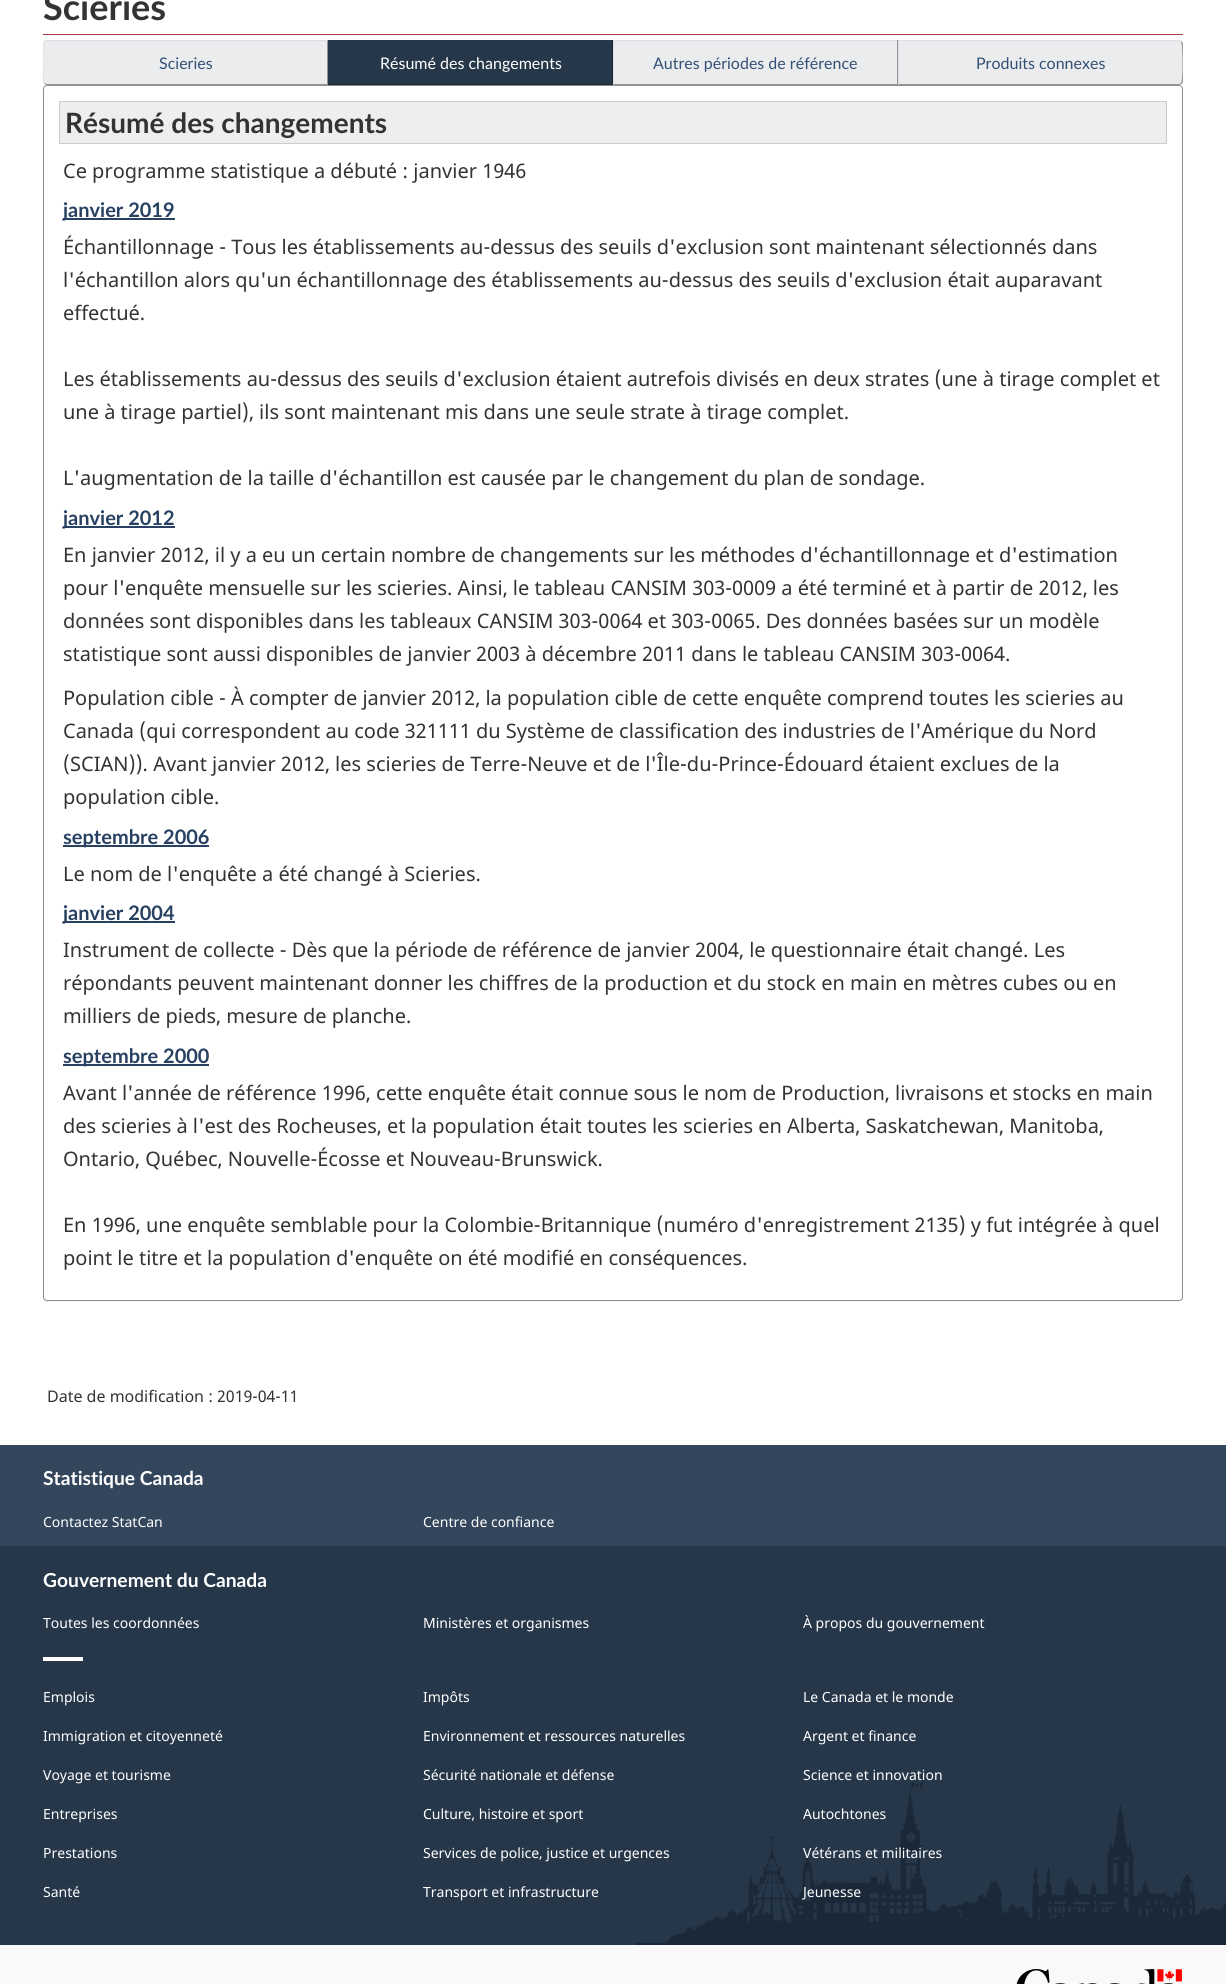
import math
import cairo


def round_path(ctx, x, y, w, h, r):
	ctx.new_sub_path()
	for i, (u, v) in enumerate([(x + w - r, y + h - r), (x + r, y + h - r), (x + r, y + r), (x + w - r, y + r)]):
		ctx.arc(u, v, r, i * math.pi / 2, (i + 1) * math.pi / 2)
	ctx.close_path()

def blur_box(ctx, x, y, w, h, r, blur, alpha):
	ctx.push_group_with_content(cairo.CONTENT_ALPHA)
	ctx.set_operator(cairo.OPERATOR_SOURCE)
	for i in range(15, -16, -2):
		e = blur * i / 6
		if min(w, h) + 2 * e > 0:
			ctx.set_source_rgba(0, 0, 0, alpha * math.erfc((i - 1) / 8.5) / 2)
			round_path(ctx, x - e, y - e, w + 2 * e, h + 2 * e, max(0, min(r + e + blur * .6, min(w, h) / 2 + e)))
			ctx.fill()
	ctx.mask(ctx.pop_group())

def paste(ctx, path, x, y, w, h):
	ctx.save()
	ctx.set_source_surface(cairo.ImageSurface.create_from_png(path), x, y)
	ctx.rectangle(x, y, w, h)
	ctx.fill()
	ctx.restore()

def draw(ctx):
	ctx.set_source_rgb(1, 1, 1)
	ctx.paint()
	ctx.set_source_rgb(0.686, 0.235, 0.263)
	ctx.rectangle(43, 34, 1140, 1)
	ctx.fill()
	ctx.select_font_face('Lato', cairo.FONT_SLANT_NORMAL, cairo.FONT_WEIGHT_BOLD)
	ctx.set_font_size(36)
	ctx.set_source_rgb(0.2, 0.2, 0.2)
	ctx.move_to(43, 20)
	ctx.show_text('Scieries')
	ctx.set_source_rgb(0, 0, 0)
	blur_box(ctx, 43, 86, 1140, 1216, 4, 0.5, 0.05)
	ctx.set_source_rgb(0.918, 0.922, 0.929)
	ctx.new_path()
	ctx.move_to(47, 40)
	ctx.line_to(328, 40)
	ctx.line_to(328, 85)
	ctx.line_to(47, 85)
	ctx.curve_to(45, 85, 43, 83, 43, 81)
	ctx.line_to(43, 44)
	ctx.curve_to(43, 42, 45, 40, 47, 40)
	ctx.close_path()
	ctx.fill()
	ctx.set_source_rgb(0.863, 0.871, 0.882)
	ctx.new_path()
	ctx.move_to(47, 40)
	ctx.line_to(44, 41)
	ctx.line_to(45, 42)
	ctx.line_to(47, 41)
	ctx.line_to(327, 41)
	ctx.line_to(328, 40)
	ctx.close_path()
	ctx.fill()
	ctx.set_source_rgb(0.576, 0.58, 0.588)
	ctx.new_path()
	ctx.move_to(328, 40)
	ctx.line_to(327, 41)
	ctx.line_to(327, 84)
	ctx.line_to(328, 85)
	ctx.close_path()
	ctx.fill()
	ctx.new_path()
	ctx.move_to(328, 85)
	ctx.line_to(327, 84)
	ctx.line_to(47, 84)
	ctx.line_to(45, 83)
	ctx.line_to(44, 84)
	ctx.line_to(47, 85)
	ctx.close_path()
	ctx.fill()
	ctx.set_source_rgb(0.863, 0.871, 0.882)
	ctx.new_path()
	ctx.move_to(43, 44)
	ctx.line_to(43, 81)
	ctx.curve_to(43, 82, 44, 83, 44, 84)
	ctx.line_to(45, 83)
	ctx.curve_to(43, 82, 43, 43, 45, 42)
	ctx.line_to(44, 41)
	ctx.close_path()
	ctx.fill()
	ctx.select_font_face('Lato')
	ctx.set_font_size(16)
	ctx.set_source_rgb(0.2, 0.314, 0.459)
	ctx.move_to(159, 69)
	ctx.show_text('Scieries')
	ctx.set_source_rgb(0.149, 0.216, 0.29)
	ctx.rectangle(329, 40, 283, 44)
	ctx.fill()
	ctx.set_source_rgb(0.098, 0.145, 0.192)
	ctx.rectangle(612, 40, 1, 45)
	ctx.rectangle(328, 84, 285, 1)
	ctx.fill()
	ctx.set_source_rgb(0.149, 0.216, 0.29)
	ctx.rectangle(328, 40, 1, 45)
	ctx.fill()
	ctx.set_source_rgb(1, 1, 1)
	ctx.move_to(380, 69)
	ctx.show_text('Résumé des changements')
	ctx.set_source_rgb(0.918, 0.922, 0.929)
	ctx.rectangle(614, 41, 283, 43)
	ctx.fill()
	ctx.set_source_rgb(0.863, 0.871, 0.882)
	ctx.rectangle(613, 40, 285, 1)
	ctx.fill()
	ctx.set_source_rgb(0.576, 0.58, 0.588)
	ctx.rectangle(897, 40, 1, 45)
	ctx.rectangle(613, 84, 285, 1)
	ctx.fill()
	ctx.set_source_rgb(0.863, 0.871, 0.882)
	ctx.rectangle(613, 40, 1, 45)
	ctx.fill()
	ctx.set_source_rgb(0.2, 0.314, 0.459)
	ctx.move_to(653, 69)
	ctx.show_text('Autres périodes de référence')
	ctx.set_source_rgb(0.918, 0.922, 0.929)
	ctx.new_path()
	ctx.move_to(898, 40)
	ctx.line_to(1179, 40)
	ctx.curve_to(1181, 40, 1183, 42, 1183, 44)
	ctx.line_to(1183, 81)
	ctx.curve_to(1183, 83, 1181, 85, 1179, 85)
	ctx.line_to(898, 85)
	ctx.close_path()
	ctx.fill()
	ctx.set_source_rgb(0.863, 0.871, 0.882)
	ctx.new_path()
	ctx.move_to(898, 40)
	ctx.line_to(899, 41)
	ctx.line_to(1179, 41)
	ctx.line_to(1181, 42)
	ctx.line_to(1182, 41)
	ctx.line_to(1179, 40)
	ctx.close_path()
	ctx.fill()
	ctx.set_source_rgb(0.576, 0.58, 0.588)
	ctx.new_path()
	ctx.move_to(1183, 81)
	ctx.line_to(1183, 44)
	ctx.curve_to(1183, 43, 1182, 42, 1182, 41)
	ctx.line_to(1181, 42)
	ctx.curve_to(1183, 43, 1183, 82, 1181, 83)
	ctx.line_to(1182, 84)
	ctx.close_path()
	ctx.fill()
	ctx.new_path()
	ctx.move_to(1179, 85)
	ctx.line_to(1182, 84)
	ctx.line_to(1181, 83)
	ctx.line_to(1179, 84)
	ctx.line_to(899, 84)
	ctx.line_to(898, 85)
	ctx.close_path()
	ctx.fill()
	ctx.set_source_rgb(0.863, 0.871, 0.882)
	ctx.new_path()
	ctx.move_to(898, 40)
	ctx.line_to(898, 85)
	ctx.line_to(899, 84)
	ctx.line_to(899, 41)
	ctx.close_path()
	ctx.fill()
	ctx.set_source_rgb(0.2, 0.314, 0.459)
	ctx.move_to(976, 69)
	ctx.show_text('Produits connexes')
	ctx.set_source_rgb(1, 1, 1)
	round_path(ctx, 43.5, 85.5, 1139, 1215, 3.5)
	ctx.fill_preserve()
	ctx.set_source_rgb(0.557, 0.557, 0.557)
	ctx.set_line_width(1)
	ctx.stroke()
	ctx.set_source_rgb(0.933, 0.933, 0.933)
	ctx.rectangle(59.5, 101.5, 1107, 42)
	ctx.fill_preserve()
	ctx.set_source_rgb(0.8, 0.8, 0.8)
	ctx.stroke()
	ctx.select_font_face('Lato', cairo.FONT_SLANT_NORMAL, cairo.FONT_WEIGHT_BOLD)
	ctx.set_font_size(28)
	ctx.set_source_rgb(0.2, 0.2, 0.2)
	ctx.move_to(65, 133)
	ctx.show_text('Résumé des changements')
	ctx.select_font_face('Noto Sans')
	ctx.set_font_size(20)
	ctx.move_to(63, 178)
	ctx.show_text('Ce programme statistique a débuté : janvier 1946')
	ctx.set_source_rgb(0.157, 0.255, 0.384)
	ctx.rectangle(63, 218, 112, 2)
	ctx.fill()
	ctx.select_font_face('Lato', cairo.FONT_SLANT_NORMAL, cairo.FONT_WEIGHT_BOLD)
	ctx.move_to(63, 217)
	ctx.show_text('janvier 2019')
	ctx.select_font_face('Noto Sans')
	ctx.set_source_rgb(0.2, 0.2, 0.2)
	for x, y, s in [
		(63, 254, 'Échantillonnage - Tous les établissements au-dessus des seuils d\'exclusion sont maintenant sélectionnés dans'),
		(63, 287, 'l\'échantillon alors qu\'un échantillonnage des établissements au-dessus des seuils d\'exclusion était auparavant'),
		(63, 320, 'effectué.'),
		(63, 386, 'Les établissements au-dessus des seuils d\'exclusion étaient autrefois divisés en deux strates (une à tirage complet et'),
		(63, 419, 'une à tirage partiel), ils sont maintenant mis dans une seule strate à tirage complet.'),
		(63, 485, 'L\'augmentation de la taille d\'échantillon est causée par le changement du plan de sondage.'),
	]:
		ctx.move_to(x, y)
		ctx.show_text(s)
	ctx.set_source_rgb(0.157, 0.255, 0.384)
	ctx.rectangle(63, 526, 112, 2)
	ctx.fill()
	ctx.select_font_face('Lato', cairo.FONT_SLANT_NORMAL, cairo.FONT_WEIGHT_BOLD)
	ctx.move_to(63, 525)
	ctx.show_text('janvier 2012')
	ctx.select_font_face('Noto Sans')
	ctx.set_source_rgb(0.2, 0.2, 0.2)
	for x, y, s in [
		(63, 562, 'En janvier 2012, il y a eu un certain nombre de changements sur les méthodes d\'échantillonnage et d\'estimation'),
		(63, 595, 'pour l\'enquête mensuelle sur les scieries. Ainsi, le tableau CANSIM 303-0009 a été terminé et à partir de 2012, les'),
		(63, 628, 'données sont disponibles dans les tableaux CANSIM 303-0064 et 303-0065. Des données basées sur un modèle'),
		(63, 661, 'statistique sont aussi disponibles de janvier 2003 à décembre 2011 dans le tableau CANSIM 303-0064.'),
		(63, 705, 'Population cible - À compter de janvier 2012, la population cible de cette enquête comprend toutes les scieries au'),
		(63, 738, 'Canada (qui correspondent au code 321111 du Système de classification des industries de l\'Amérique du Nord'),
		(63, 771, '(SCIAN)). Avant janvier 2012, les scieries de Terre-Neuve et de l\'Île-du-Prince-Édouard étaient exclues de la'),
		(63, 804, 'population cible.'),
	]:
		ctx.move_to(x, y)
		ctx.show_text(s)
	ctx.set_source_rgb(0.157, 0.255, 0.384)
	ctx.rectangle(63, 845, 146, 2)
	ctx.fill()
	ctx.select_font_face('Lato', cairo.FONT_SLANT_NORMAL, cairo.FONT_WEIGHT_BOLD)
	ctx.move_to(63, 844)
	ctx.show_text('septembre 2006')
	ctx.select_font_face('Noto Sans')
	ctx.set_source_rgb(0.2, 0.2, 0.2)
	ctx.move_to(63, 881)
	ctx.show_text('Le nom de l\'enquête a été changé à Scieries.')
	ctx.set_source_rgb(0.157, 0.255, 0.384)
	ctx.rectangle(63, 921, 112, 2)
	ctx.fill()
	ctx.select_font_face('Lato', cairo.FONT_SLANT_NORMAL, cairo.FONT_WEIGHT_BOLD)
	ctx.move_to(63, 920)
	ctx.show_text('janvier 2004')
	ctx.select_font_face('Noto Sans')
	ctx.set_source_rgb(0.2, 0.2, 0.2)
	for x, y, s in [
		(63, 957, 'Instrument de collecte - Dès que la période de référence de janvier 2004, le questionnaire était changé. Les'),
		(63, 990, 'répondants peuvent maintenant donner les chiffres de la production et du stock en main en mètres cubes ou en'),
		(63, 1023, 'milliers de pieds, mesure de planche.'),
	]:
		ctx.move_to(x, y)
		ctx.show_text(s)
	ctx.set_source_rgb(0.157, 0.255, 0.384)
	ctx.rectangle(63, 1064, 146, 2)
	ctx.fill()
	ctx.select_font_face('Lato', cairo.FONT_SLANT_NORMAL, cairo.FONT_WEIGHT_BOLD)
	ctx.move_to(63, 1063)
	ctx.show_text('septembre 2000')
	ctx.select_font_face('Noto Sans')
	ctx.set_source_rgb(0.2, 0.2, 0.2)
	for x, y, s in [
		(63, 1100, 'Avant l\'année de référence 1996, cette enquête était connue sous le nom de Production, livraisons et stocks en main'),
		(63, 1133, 'des scieries à l\'est des Rocheuses, et la population était toutes les scieries en Alberta, Saskatchewan, Manitoba,'),
		(63, 1166, 'Ontario, Québec, Nouvelle-Écosse et Nouveau-Brunswick.'),
		(63, 1232, 'En 1996, une enquête semblable pour la Colombie-Britannique (numéro d\'enregistrement 2135) y fut intégrée à quel'),
		(63, 1265, 'point le titre et la population d\'enquête on été modifié en conséquences.'),
	]:
		ctx.move_to(x, y)
		ctx.show_text(s)
	ctx.set_font_size(16)
	ctx.move_to(47, 1402)
	ctx.show_text('Date de modification : 2019-04-11')
	ctx.set_source_rgb(0.2, 0.275, 0.361)
	ctx.rectangle(0, 1445, 1226, 101)
	ctx.fill()
	ctx.select_font_face('Lato', cairo.FONT_SLANT_NORMAL, cairo.FONT_WEIGHT_BOLD)
	ctx.set_font_size(19.25)
	ctx.set_source_rgb(1, 1, 1)
	ctx.move_to(43, 1485)
	ctx.show_text('Statistique Canada')
	ctx.select_font_face('Noto Sans')
	ctx.set_font_size(14)
	ctx.move_to(43, 1527)
	ctx.show_text('Contactez StatCan')
	ctx.move_to(423, 1527)
	ctx.show_text('Centre de confiance')
	ctx.set_source_rgb(0.149, 0.216, 0.29)
	ctx.rectangle(0, 1546, 1226, 399)
	ctx.fill()
	paste(ctx, 'media/1.png', 636, 1782, 590, 163)
	ctx.select_font_face('Lato', cairo.FONT_SLANT_NORMAL, cairo.FONT_WEIGHT_BOLD)
	ctx.set_font_size(19.25)
	ctx.set_source_rgb(1, 1, 1)
	ctx.move_to(43, 1587)
	ctx.show_text('Gouvernement du Canada')
	ctx.select_font_face('Noto Sans')
	ctx.set_font_size(14)
	for x, y, s in [
		(43, 1628, 'Toutes les coordonnées'),
		(423, 1628, 'Ministères et organismes'),
		(803, 1628, 'À propos du gouvernement'),
	]:
		ctx.move_to(x, y)
		ctx.show_text(s)
	ctx.rectangle(43, 1657, 40, 4)
	ctx.fill()
	for x, y, s in [
		(43, 1702, 'Emplois'),
		(423, 1702, 'Impôts'),
		(803, 1702, 'Le Canada et le monde'),
		(43, 1741, 'Immigration et citoyenneté'),
		(423, 1741, 'Environnement et ressources naturelles'),
		(803, 1741, 'Argent et finance'),
		(43, 1780, 'Voyage et tourisme'),
		(423, 1780, 'Sécurité nationale et défense'),
		(803, 1780, 'Science et innovation'),
		(43, 1819, 'Entreprises'),
		(423, 1819, 'Culture, histoire et sport'),
		(803, 1819, 'Autochtones'),
		(43, 1858, 'Prestations'),
		(423, 1858, 'Services de police, justice et urgences'),
		(803, 1858, 'Vétérans et militaires'),
		(43, 1897, 'Santé'),
		(423, 1897, 'Transport et infrastructure'),
		(803, 1897, 'Jeunesse'),
	]:
		ctx.move_to(x, y)
		ctx.show_text(s)
	ctx.set_source_rgb(0.973, 0.973, 0.973)
	ctx.rectangle(0, 1945, 1226, 39)
	ctx.fill()
	paste(ctx, 'media/2.png', 1016, 1969, 166, 15)


surface = cairo.ImageSurface(cairo.FORMAT_RGB24, 1226, 1984)
ctx = cairo.Context(surface)
options = cairo.FontOptions()
options.set_hint_metrics(cairo.HINT_METRICS_OFF)
options.set_hint_style(cairo.HINT_STYLE_NONE)
ctx.set_font_options(options)
ctx.set_miter_limit(4)
draw(ctx)
surface.write_to_png('image.png')
